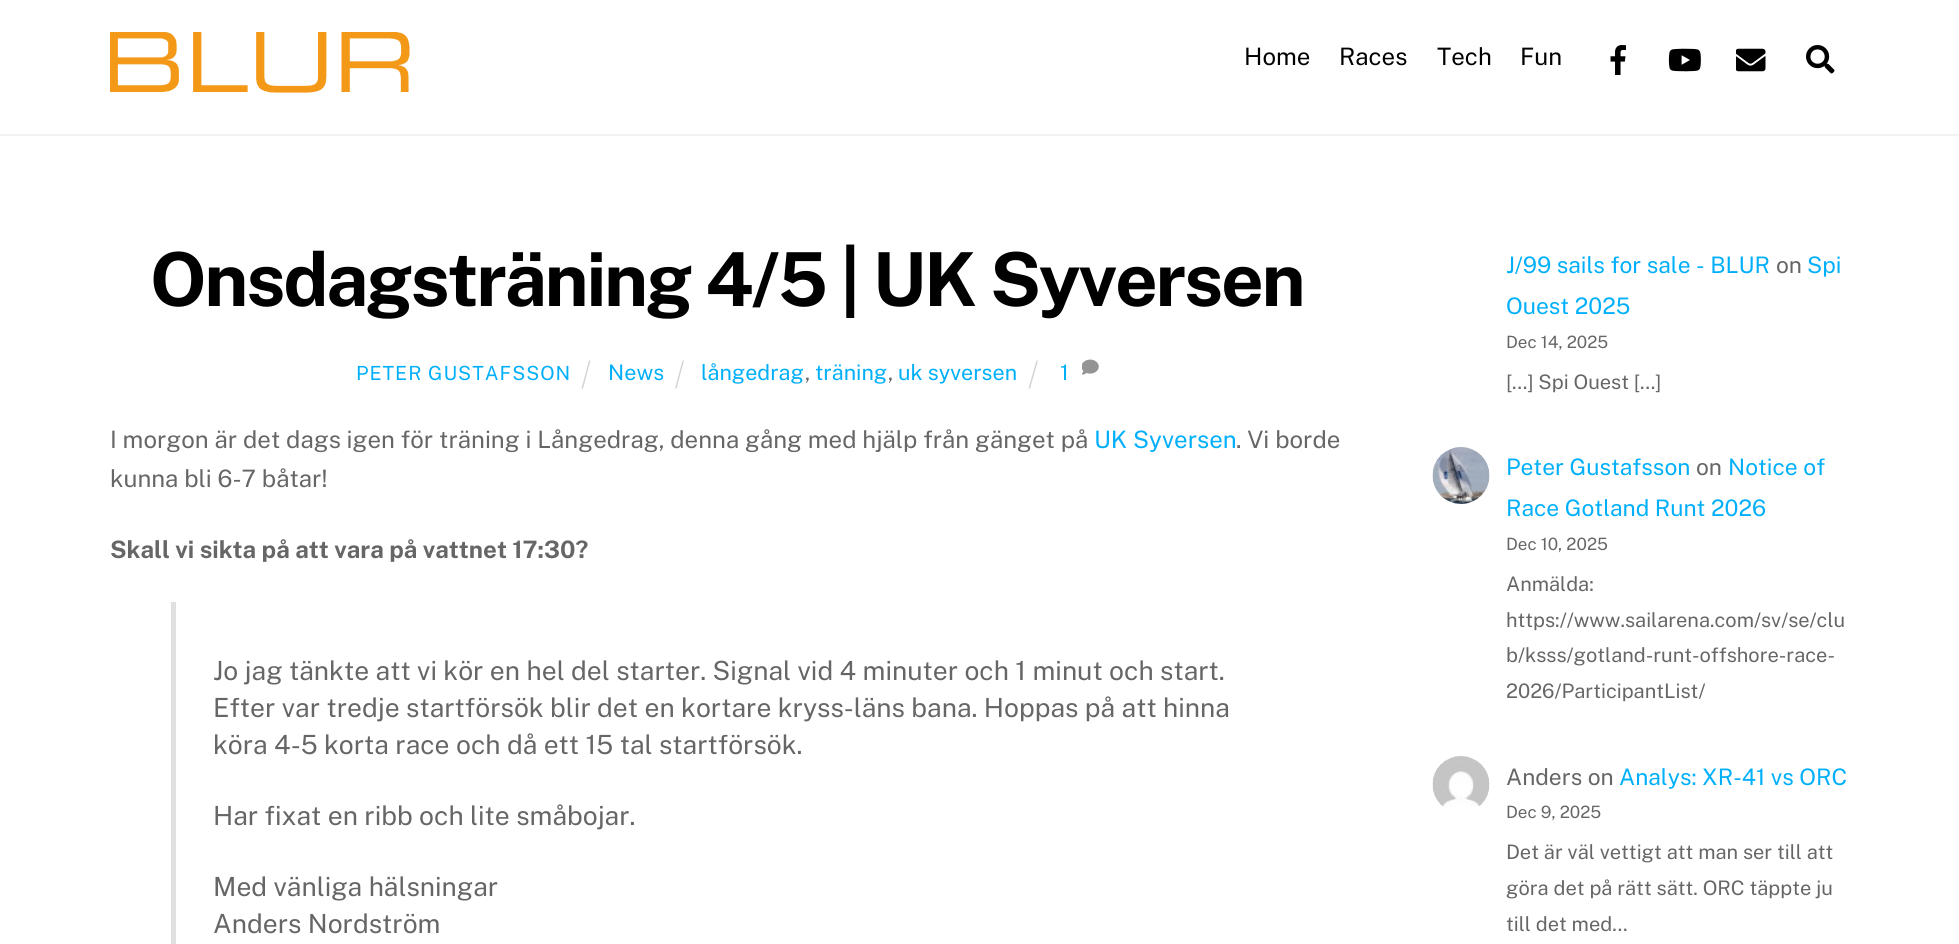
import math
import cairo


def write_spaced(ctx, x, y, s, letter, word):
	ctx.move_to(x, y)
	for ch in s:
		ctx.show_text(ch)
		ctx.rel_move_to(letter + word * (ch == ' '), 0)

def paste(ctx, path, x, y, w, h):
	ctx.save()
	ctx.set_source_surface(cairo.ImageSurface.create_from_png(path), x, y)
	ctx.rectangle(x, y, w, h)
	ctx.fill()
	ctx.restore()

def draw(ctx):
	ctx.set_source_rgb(1, 1, 1)
	ctx.paint()
	ctx.set_source_rgb(0.949, 0.949, 0.949)
	ctx.rectangle(0, 134, 1959, 2)
	ctx.fill()
	paste(ctx, 'media/1.png', 110, 32, 300, 61)
	ctx.select_font_face('Public Sans')
	ctx.set_font_size(24)
	ctx.set_source_rgb(0, 0, 0)
	for x, y, s in [
		(1244, 65, 'Home'),
		(1339, 65, 'Races'),
		(1437, 65, 'Tech'),
		(1520, 65, 'Fun'),
	]:
		ctx.move_to(x, y)
		ctx.show_text(s)
	paste(ctx, 'media/2.png', 1610, 45, 16, 30)
	paste(ctx, 'media/3.png', 1668, 48, 33, 24)
	paste(ctx, 'media/4.png', 1736, 48, 30, 24)
	paste(ctx, 'media/5.png', 1806, 45, 29, 29)
	ctx.select_font_face('Public Sans', cairo.FONT_SLANT_NORMAL, cairo.FONT_WEIGHT_BOLD)
	ctx.set_font_size(74.4)
	write_spaced(ctx, 150, 306, 'Onsdagsträning 4/5 | UK Syversen', -2.25, 0)
	ctx.select_font_face('Public Sans')
	ctx.set_font_size(19.5)
	ctx.set_source_rgb(0, 0.686, 0.98)
	write_spaced(ctx, 356, 380, 'PETER GUSTAFSSON', 1, 0)
	ctx.set_source_rgb(0.827, 0.827, 0.827)
	ctx.new_path()
	ctx.move_to(589, 360.5)
	ctx.line_to(590.5, 360.5)
	ctx.line_to(583, 388.5)
	ctx.line_to(581.5, 388.5)
	ctx.close_path()
	ctx.fill()
	ctx.set_font_size(21.5)
	ctx.set_source_rgb(0, 0.686, 0.98)
	ctx.move_to(608, 380)
	ctx.show_text('News')
	ctx.set_source_rgb(0.827, 0.827, 0.827)
	ctx.new_path()
	ctx.move_to(682.5, 360.5)
	ctx.line_to(684, 360.5)
	ctx.line_to(676.5, 388.5)
	ctx.line_to(675, 388.5)
	ctx.close_path()
	ctx.fill()
	ctx.set_source_rgb(0, 0.686, 0.98)
	ctx.move_to(701, 380)
	ctx.show_text('långedrag')
	ctx.set_source_rgb(0.4, 0.4, 0.4)
	ctx.move_to(805, 380)
	ctx.show_text(',')
	ctx.set_source_rgb(0, 0.686, 0.98)
	ctx.move_to(815, 380)
	ctx.show_text('träning')
	ctx.set_source_rgb(0.4, 0.4, 0.4)
	ctx.move_to(888, 380)
	ctx.show_text(',')
	ctx.set_source_rgb(0, 0.686, 0.98)
	ctx.move_to(898, 380)
	ctx.show_text('uk syversen')
	ctx.set_source_rgb(0.827, 0.827, 0.827)
	ctx.new_path()
	ctx.move_to(1036.5, 360.5)
	ctx.line_to(1038, 360.5)
	ctx.line_to(1030, 388.5)
	ctx.line_to(1028.5, 388.5)
	ctx.close_path()
	ctx.fill()
	ctx.set_source_rgb(0, 0.686, 0.98)
	ctx.move_to(1060, 380)
	ctx.show_text('1')
	paste(ctx, 'media/6.png', 1082, 359, 17, 16)
	ctx.set_font_size(24)
	ctx.set_source_rgb(0.4, 0.4, 0.4)
	ctx.move_to(110, 448)
	ctx.show_text('I morgon är det dags igen för träning i Långedrag, denna gång med hjälp från gänget på')
	ctx.set_source_rgb(0, 0.686, 0.98)
	ctx.move_to(1094, 448)
	ctx.show_text('UK Syversen')
	ctx.set_source_rgb(0.4, 0.4, 0.4)
	ctx.move_to(1236, 448)
	ctx.show_text('. Vi borde')
	ctx.move_to(110, 487)
	ctx.show_text('kunna bli 6-7 båtar!')
	ctx.select_font_face('Public Sans', cairo.FONT_SLANT_NORMAL, cairo.FONT_WEIGHT_BOLD)
	ctx.move_to(110, 558)
	ctx.show_text('Skall vi sikta på att vara på vattnet 17:30?')
	ctx.set_source_rgb(0.878, 0.878, 0.878)
	ctx.rectangle(171, 602, 5, 342)
	ctx.fill()
	ctx.select_font_face('Public Sans')
	ctx.set_font_size(26.4)
	ctx.set_source_rgb(0.4, 0.4, 0.4)
	for x, y, s in [
		(213, 680, 'Jo jag tänkte att vi kör en hel del starter. Signal vid 4 minuter och 1 minut och start.'),
		(213, 717, 'Efter var tredje startförsök blir det en kortare kryss-läns bana. Hoppas på att hinna'),
		(213, 754, 'köra 4-5 korta race och då ett 15 tal startförsök.'),
		(213, 825, 'Har fixat en ribb och lite småbojar.'),
		(213, 896, 'Med vänliga hälsningar'),
		(213, 933, 'Anders Nordström'),
	]:
		ctx.move_to(x, y)
		ctx.show_text(s)
	ctx.set_font_size(22.75)
	ctx.set_source_rgb(0, 0.686, 0.98)
	ctx.move_to(1506, 273)
	ctx.show_text('J/99 sails for sale - BLUR')
	ctx.set_source_rgb(0.4, 0.4, 0.4)
	ctx.move_to(1776, 273)
	ctx.show_text('on')
	ctx.set_source_rgb(0, 0.686, 0.98)
	ctx.move_to(1807, 273)
	ctx.show_text('Spi')
	ctx.move_to(1506, 314)
	ctx.show_text('Ouest 2025')
	ctx.set_font_size(17)
	ctx.set_source_rgb(0.4, 0.4, 0.4)
	ctx.move_to(1506, 348)
	ctx.show_text('Dec 14, 2025')
	ctx.set_font_size(20)
	ctx.move_to(1506, 389)
	ctx.show_text('[…] Spi Ouest […]')
	paste(ctx, 'media/7.png', 1432, 447, 58, 57)
	ctx.set_font_size(22.75)
	ctx.set_source_rgb(0, 0.686, 0.98)
	ctx.move_to(1506, 475)
	ctx.show_text('Peter Gustafsson')
	ctx.set_source_rgb(0.4, 0.4, 0.4)
	ctx.move_to(1696, 475)
	ctx.show_text('on')
	ctx.set_source_rgb(0, 0.686, 0.98)
	ctx.move_to(1728, 475)
	ctx.show_text('Notice of')
	ctx.move_to(1506, 516)
	ctx.show_text('Race Gotland Runt 2026')
	ctx.set_font_size(17)
	ctx.set_source_rgb(0.4, 0.4, 0.4)
	ctx.move_to(1506, 550)
	ctx.show_text('Dec 10, 2025')
	ctx.set_font_size(20)
	for x, y, s in [
		(1506, 591, 'Anmälda:'),
		(1506, 627, 'https://www.sailarena.com/sv/se/clu'),
		(1506, 662, 'b/ksss/gotland-runt-offshore-race-'),
		(1506, 698, '2026/ParticipantList/'),
	]:
		ctx.move_to(x, y)
		ctx.show_text(s)
	paste(ctx, 'media/8.png', 1432, 756, 58, 51)
	ctx.set_font_size(22.75)
	ctx.move_to(1506, 785)
	ctx.show_text('Anders on')
	ctx.set_source_rgb(0, 0.686, 0.98)
	ctx.move_to(1619, 785)
	ctx.show_text('Analys: XR-41 vs ORC')
	ctx.set_font_size(17)
	ctx.set_source_rgb(0.4, 0.4, 0.4)
	ctx.move_to(1506, 818)
	ctx.show_text('Dec 9, 2025')
	ctx.set_font_size(20)
	for x, y, s in [
		(1506, 859, 'Det är väl vettigt att man ser till att'),
		(1506, 895, 'göra det på rätt sätt. ORC täppte ju'),
		(1506, 931, 'till det med…'),
	]:
		ctx.move_to(x, y)
		ctx.show_text(s)


surface = cairo.ImageSurface(cairo.FORMAT_RGB24, 1959, 944)
ctx = cairo.Context(surface)
options = cairo.FontOptions()
options.set_hint_metrics(cairo.HINT_METRICS_OFF)
options.set_hint_style(cairo.HINT_STYLE_NONE)
ctx.set_font_options(options)
ctx.set_miter_limit(4)
draw(ctx)
surface.write_to_png('image.png')
